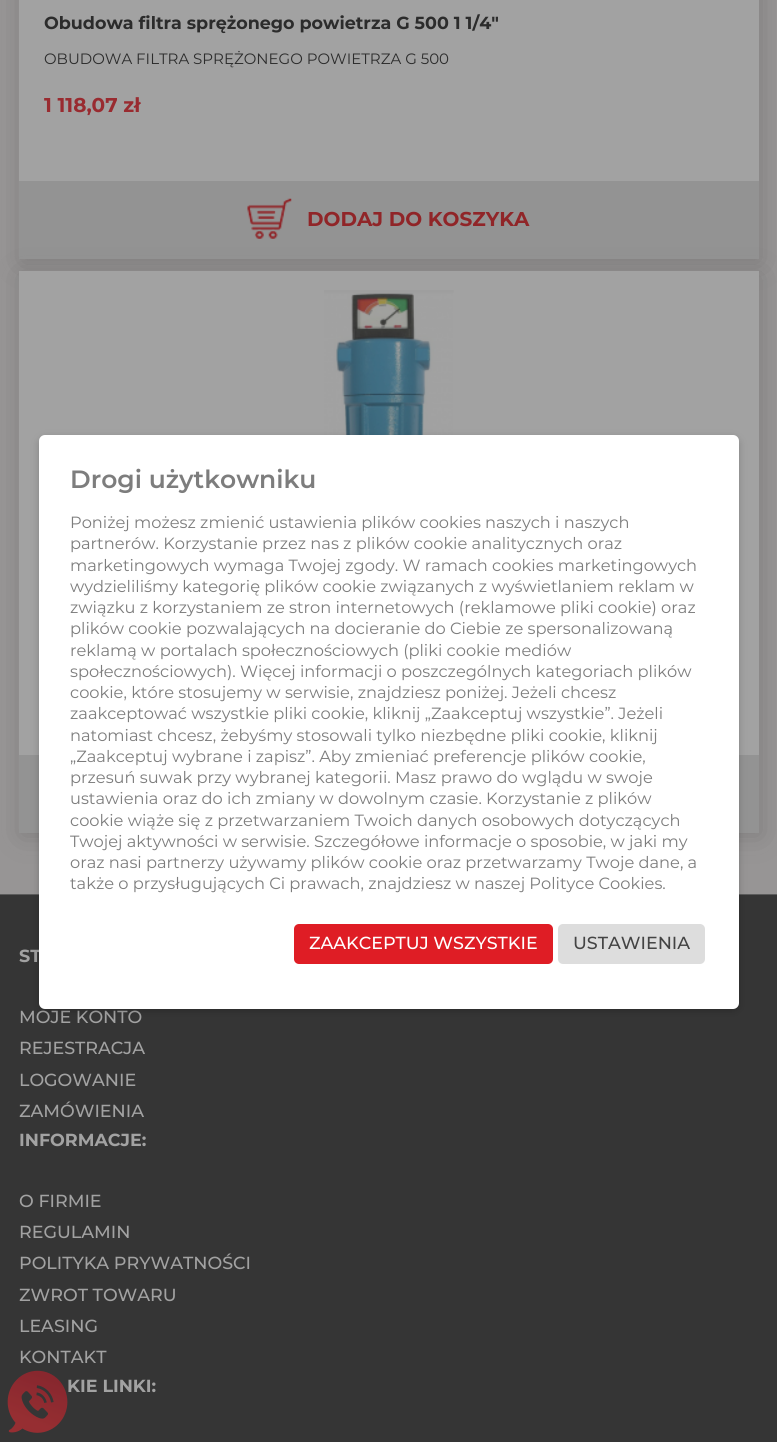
import math
import cairo


def round_path(ctx, x, y, w, h, r):
	ctx.new_sub_path()
	for i, (u, v) in enumerate([(x + w - r, y + h - r), (x + r, y + h - r), (x + r, y + r), (x + w - r, y + r)]):
		ctx.arc(u, v, r, i * math.pi / 2, (i + 1) * math.pi / 2)
	ctx.close_path()

def blur_box(ctx, x, y, w, h, r, blur, alpha):
	ctx.push_group_with_content(cairo.CONTENT_ALPHA)
	ctx.set_operator(cairo.OPERATOR_SOURCE)
	for i in range(15, -16, -2):
		e = blur * i / 6
		if min(w, h) + 2 * e > 0:
			ctx.set_source_rgba(0, 0, 0, alpha * math.erfc((i - 1) / 8.5) / 2)
			round_path(ctx, x - e, y - e, w + 2 * e, h + 2 * e, max(0, min(r + e + blur * .6, min(w, h) / 2 + e)))
			ctx.fill()
	ctx.mask(ctx.pop_group())

def paste(ctx, path, x, y, w, h):
	ctx.save()
	ctx.set_source_surface(cairo.ImageSurface.create_from_png(path), x, y)
	ctx.rectangle(x, y, w, h)
	ctx.fill()
	ctx.restore()

def draw(ctx):
	ctx.set_source_rgb(0.592, 0.584, 0.584)
	ctx.paint()
	ctx.set_source_rgb(0.133, 0.133, 0.133)
	blur_box(ctx, 21, -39, 740, 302, 0, 13, 0.2)
	ctx.set_source_rgb(0.635, 0.635, 0.635)
	ctx.rectangle(19, 0, 740, 181)
	ctx.fill()
	ctx.select_font_face('Montserrat', cairo.FONT_SLANT_NORMAL, cairo.FONT_WEIGHT_BOLD)
	ctx.set_font_size(17.5)
	ctx.set_source_rgb(0.173, 0.173, 0.173)
	ctx.move_to(44, 29)
	ctx.show_text('Obudowa filtra sprężonego powietrza G 500 1 1/4"')
	ctx.select_font_face('Montserrat')
	ctx.set_font_size(15)
	ctx.move_to(44, 64)
	ctx.show_text('OBUDOWA FILTRA SPRĘŻONEGO POWIETRZA G 500')
	ctx.save()
	ctx.rectangle(44, 71, 690, 72)
	ctx.clip()
	ctx.select_font_face('Montserrat', cairo.FONT_SLANT_NORMAL, cairo.FONT_WEIGHT_BOLD)
	ctx.set_font_size(20)
	ctx.set_source_rgb(0.6, 0.169, 0.188)
	ctx.move_to(44, 112)
	ctx.show_text('1 118,07 zł')
	ctx.restore()
	ctx.set_source_rgb(0.576, 0.576, 0.576)
	ctx.rectangle(19, 181, 740, 78)
	ctx.fill()
	paste(ctx, 'media/1.png', 247, 198, 45, 41)
	ctx.select_font_face('Montserrat', cairo.FONT_SLANT_NORMAL, cairo.FONT_WEIGHT_BOLD)
	ctx.set_font_size(20)
	ctx.set_source_rgb(0.565, 0.145, 0.157)
	ctx.move_to(307, 226)
	ctx.show_text('DODAJ DO KOSZYKA')
	ctx.set_source_rgb(0.133, 0.133, 0.133)
	blur_box(ctx, 21, 275, 740, 561, 0, 13, 0.2)
	ctx.set_source_rgb(0.635, 0.635, 0.635)
	ctx.rectangle(19, 271, 740, 484)
	ctx.fill()
	paste(ctx, 'media/2.png', 324, 290, 130, 145)
	ctx.set_source_rgb(0.576, 0.576, 0.576)
	ctx.rectangle(19, 755, 740, 78)
	ctx.fill()
	ctx.set_source_rgb(0.208, 0.208, 0.208)
	ctx.rectangle(0, 895, 777, 547)
	ctx.fill()
	ctx.set_source_rgb(0.361, 0.361, 0.361)
	ctx.rectangle(0, 894, 777, 1)
	ctx.fill()
	ctx.set_font_size(17.5)
	ctx.set_source_rgb(0.635, 0.635, 0.635)
	ctx.move_to(19, 962)
	ctx.show_text('ST')
	ctx.select_font_face('Montserrat Medium')
	for x, y, s in [
		(19, 1023, 'MOJE KONTO'),
		(19, 1054, 'REJESTRACJA'),
		(19, 1086, 'LOGOWANIE'),
		(19, 1117, 'ZAMÓWIENIA'),
	]:
		ctx.move_to(x, y)
		ctx.show_text(s)
	ctx.select_font_face('Montserrat', cairo.FONT_SLANT_NORMAL, cairo.FONT_WEIGHT_BOLD)
	ctx.move_to(19, 1146)
	ctx.show_text('INFORMACJE:')
	ctx.select_font_face('Montserrat Medium')
	for x, y, s in [
		(19, 1207, 'O FIRMIE'),
		(19, 1238, 'REGULAMIN'),
		(19, 1269, 'POLITYKA PRYWATNOŚCI'),
		(19, 1301, 'ZWROT TOWARU'),
		(19, 1332, 'LEASING'),
		(19, 1363, 'KONTAKT'),
	]:
		ctx.move_to(x, y)
		ctx.show_text(s)
	ctx.select_font_face('Montserrat', cairo.FONT_SLANT_NORMAL, cairo.FONT_WEIGHT_BOLD)
	ctx.move_to(67, 1392)
	ctx.show_text('KIE LINKI:')
	ctx.set_source_rgb(0, 0, 0)
	blur_box(ctx, 39, 438, 700, 573, 6, 4, 0.2)
	ctx.set_source_rgb(1, 1, 1)
	round_path(ctx, 39, 435, 700, 574, 6)
	ctx.fill()
	ctx.select_font_face('Montserrat SemiBold')
	ctx.set_font_size(25)
	ctx.set_source_rgb(0.49, 0.49, 0.49)
	ctx.move_to(70, 488)
	ctx.show_text('Drogi użytkowniku')
	ctx.select_font_face('Montserrat')
	ctx.set_font_size(16.25)
	for x, y, s in [
		(70, 528, 'Poniżej możesz zmienić ustawienia plików cookies naszych i naszych'),
		(70, 549, 'partnerów. Korzystanie przez nas z plików cookie analitycznych oraz'),
		(70, 571, 'marketingowych wymaga Twojej zgody. W ramach cookies marketingowych'),
		(70, 592, 'wydzieliliśmy kategorię plików cookie związanych z wyświetlaniem reklam w'),
		(70, 613, 'związku z korzystaniem ze stron internetowych (reklamowe pliki cookie) oraz'),
		(70, 634, 'plików cookie pozwalających na docieranie do Ciebie ze spersonalizowaną'),
		(70, 656, 'reklamą w portalach społecznościowych (pliki cookie mediów'),
		(70, 677, 'społecznościowych). Więcej informacji o poszczególnych kategoriach plików'),
		(70, 698, 'cookie, które stosujemy w serwisie, znajdziesz poniżej. Jeżeli chcesz'),
		(70, 719, 'zaakceptować wszystkie pliki cookie, kliknij „Zaakceptuj wszystkie”. Jeżeli'),
		(70, 741, 'natomiast chcesz, żebyśmy stosowali tylko niezbędne pliki cookie, kliknij'),
		(70, 762, '„Zaakceptuj wybrane i zapisz”. Aby zmieniać preferencje plików cookie,'),
		(70, 783, 'przesuń suwak przy wybranej kategorii. Masz prawo do wglądu w swoje'),
		(70, 804, 'ustawienia oraz do ich zmiany w dowolnym czasie. Korzystanie z plików'),
		(70, 826, 'cookie wiąże się z przetwarzaniem Twoich danych osobowych dotyczących'),
		(70, 847, 'Twojej aktywności w serwisie. Szczegółowe informacje o sposobie, w jaki my'),
		(70, 868, 'oraz nasi partnerzy używamy plików cookie oraz przetwarzamy Twoje dane, a'),
		(70, 889, 'także o przysługujących Ci prawach, znajdziesz w naszej Polityce Cookies.'),
	]:
		ctx.move_to(x, y)
		ctx.show_text(s)
	ctx.set_source_rgb(0.875, 0.114, 0.145)
	round_path(ctx, 294, 924, 259, 40, 5)
	ctx.fill()
	ctx.select_font_face('Montserrat Medium')
	ctx.set_font_size(17.5)
	ctx.set_source_rgb(1, 1, 1)
	ctx.move_to(309, 949)
	ctx.show_text('ZAAKCEPTUJ WSZYSTKIE')
	ctx.set_source_rgb(0.867, 0.867, 0.867)
	round_path(ctx, 558, 924, 147, 40, 5)
	ctx.fill()
	ctx.set_source_rgb(0.267, 0.267, 0.267)
	ctx.move_to(573, 949)
	ctx.show_text('USTAWIENIA')
	paste(ctx, 'media/3.png', 7, 1370, 61, 63)


surface = cairo.ImageSurface(cairo.FORMAT_RGB24, 777, 1442)
ctx = cairo.Context(surface)
options = cairo.FontOptions()
options.set_hint_metrics(cairo.HINT_METRICS_OFF)
options.set_hint_style(cairo.HINT_STYLE_NONE)
ctx.set_font_options(options)
ctx.set_miter_limit(4)
draw(ctx)
surface.write_to_png('image.png')
